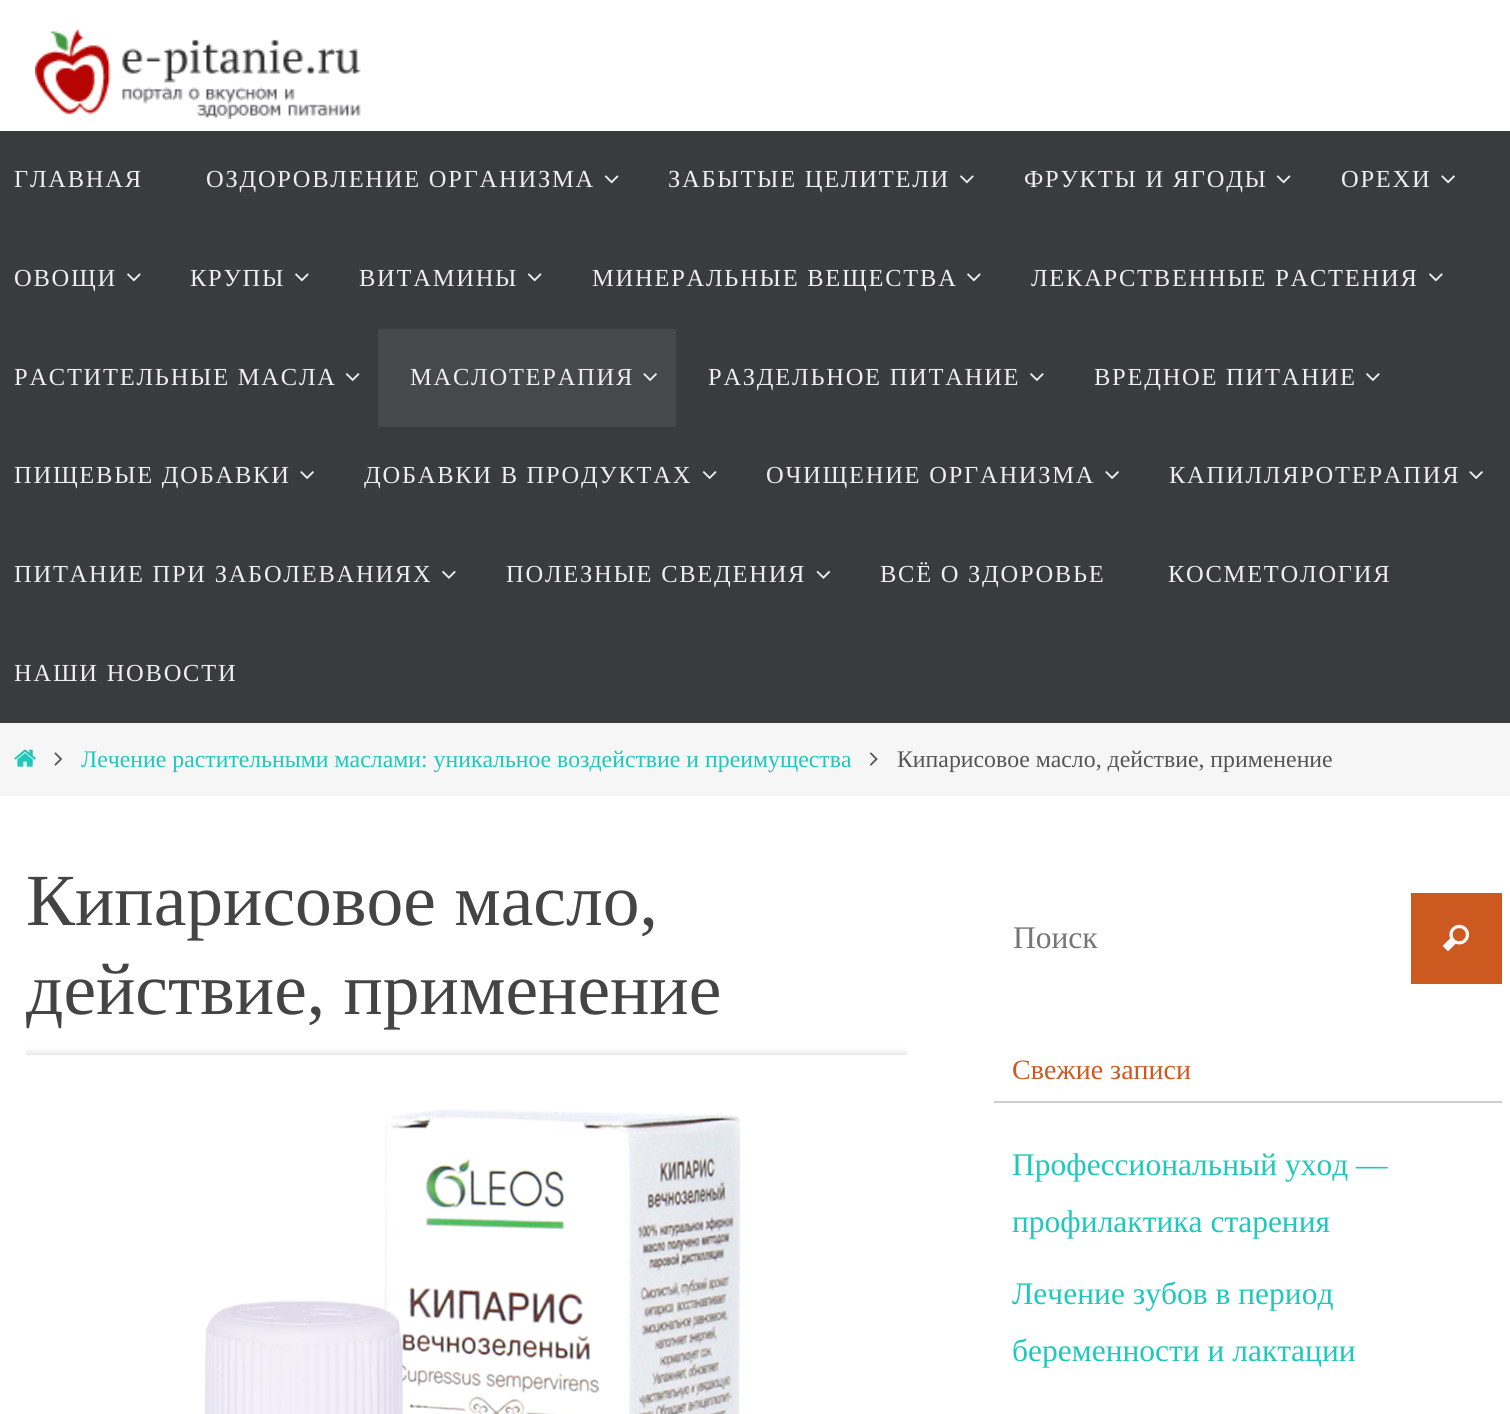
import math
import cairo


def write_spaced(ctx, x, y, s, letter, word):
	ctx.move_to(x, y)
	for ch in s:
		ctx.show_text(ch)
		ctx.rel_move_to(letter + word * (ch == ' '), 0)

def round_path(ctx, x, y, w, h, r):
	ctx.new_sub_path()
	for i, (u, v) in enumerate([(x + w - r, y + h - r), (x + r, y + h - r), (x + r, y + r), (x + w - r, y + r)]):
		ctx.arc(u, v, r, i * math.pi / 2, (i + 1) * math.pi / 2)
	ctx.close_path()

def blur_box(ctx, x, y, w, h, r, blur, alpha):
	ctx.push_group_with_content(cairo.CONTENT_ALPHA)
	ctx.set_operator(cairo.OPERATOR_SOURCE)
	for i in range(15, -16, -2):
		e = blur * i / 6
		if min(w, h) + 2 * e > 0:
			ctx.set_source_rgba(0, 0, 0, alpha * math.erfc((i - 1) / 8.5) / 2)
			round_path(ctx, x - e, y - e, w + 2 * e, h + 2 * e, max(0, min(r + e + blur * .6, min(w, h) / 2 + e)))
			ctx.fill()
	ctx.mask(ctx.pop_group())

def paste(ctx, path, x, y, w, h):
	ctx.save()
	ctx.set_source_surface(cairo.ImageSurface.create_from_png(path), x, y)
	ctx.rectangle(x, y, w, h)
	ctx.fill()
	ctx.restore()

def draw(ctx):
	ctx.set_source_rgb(1, 1, 1)
	ctx.paint()
	paste(ctx, 'media/1.png', 35, 29, 326, 90)
	ctx.set_source_rgb(0.227, 0.231, 0.239)
	ctx.rectangle(0, 131, 1510, 592)
	ctx.fill()
	ctx.select_font_face('Liberation Serif')
	ctx.set_font_size(24.5)
	ctx.set_source_rgb(0.933, 0.933, 0.933)
	write_spaced(ctx, 14, 187, 'ГЛАВНАЯ', 1.75, 0)
	write_spaced(ctx, 206, 187, 'ОЗДОРОВЛЕНИЕ ОРГАНИЗМА', 1.75, 0)
	paste(ctx, 'media/2.png', 604, 175, 15, 9)
	write_spaced(ctx, 668, 187, 'ЗАБЫТЫЕ ЦЕЛИТЕЛИ', 1.75, 0)
	paste(ctx, 'media/3.png', 960, 175, 14, 9)
	write_spaced(ctx, 1024, 187, 'ФРУКТЫ И ЯГОДЫ', 1.75, 0)
	paste(ctx, 'media/2.png', 1276, 175, 15, 9)
	write_spaced(ctx, 1341, 187, 'ОРЕХИ', 1.75, 0)
	paste(ctx, 'media/4.png', 1441, 175, 14, 9)
	write_spaced(ctx, 14, 286, 'ОВОЩИ', 1.75, 0)
	paste(ctx, 'media/3.png', 127, 273, 14, 9)
	write_spaced(ctx, 190, 286, 'КРУПЫ', 1.75, 0)
	paste(ctx, 'media/3.png', 295, 273, 14, 9)
	write_spaced(ctx, 359, 286, 'ВИТАМИНЫ', 1.75, 0)
	paste(ctx, 'media/2.png', 527, 273, 15, 9)
	write_spaced(ctx, 592, 286, 'МИНЕРАЛЬНЫЕ ВЕЩЕСТВА', 1.75, 0)
	paste(ctx, 'media/3.png', 967, 273, 14, 9)
	write_spaced(ctx, 1031, 286, 'ЛЕКАРСТВЕННЫЕ РАСТЕНИЯ', 1.75, 0)
	paste(ctx, 'media/3.png', 1429, 273, 14, 9)
	write_spaced(ctx, 14, 385, 'РАСТИТЕЛЬНЫЕ МАСЛА', 1.75, 0)
	paste(ctx, 'media/5.png', 345, 373, 15, 8)
	ctx.set_source_rgb(0.278, 0.282, 0.29)
	ctx.rectangle(378, 329, 298, 98)
	ctx.fill()
	ctx.set_source_rgb(0.933, 0.933, 0.933)
	write_spaced(ctx, 410, 385, 'МАСЛОТЕРАПИЯ', 1.75, 0)
	paste(ctx, 'media/6.png', 643, 373, 14, 8)
	write_spaced(ctx, 708, 385, 'РАЗДЕЛЬНОЕ ПИТАНИЕ', 1.75, 0)
	paste(ctx, 'media/7.png', 1030, 373, 14, 8)
	write_spaced(ctx, 1094, 385, 'ВРЕДНОЕ ПИТАНИЕ', 1.75, 0)
	paste(ctx, 'media/7.png', 1366, 373, 14, 8)
	write_spaced(ctx, 14, 483, 'ПИЩЕВЫЕ ДОБАВКИ', 1.75, 0)
	paste(ctx, 'media/8.png', 300, 471, 14, 8)
	write_spaced(ctx, 364, 483, 'ДОБАВКИ В ПРОДУКТАХ', 1.75, 0)
	paste(ctx, 'media/5.png', 702, 471, 15, 8)
	write_spaced(ctx, 766, 483, 'ОЧИЩЕНИЕ ОРГАНИЗМА', 1.75, 0)
	paste(ctx, 'media/8.png', 1105, 471, 14, 8)
	write_spaced(ctx, 1169, 483, 'КАПИЛЛЯРОТЕРАПИЯ', 1.75, 0)
	paste(ctx, 'media/8.png', 1469, 471, 14, 8)
	write_spaced(ctx, 14, 582, 'ПИТАНИЕ ПРИ ЗАБОЛЕВАНИЯХ', 1.75, 0)
	paste(ctx, 'media/9.png', 442, 570, 14, 9)
	write_spaced(ctx, 506, 582, 'ПОЛЕЗНЫЕ СВЕДЕНИЯ', 1.75, 0)
	paste(ctx, 'media/10.png', 816, 570, 15, 9)
	for x, y, s in [
		(880, 582, 'ВСЁ О ЗДОРОВЬЕ'),
		(1168, 582, 'КОСМЕТОЛОГИЯ'),
		(14, 681, 'НАШИ НОВОСТИ'),
	]:
		write_spaced(ctx, x, y, s, 1.75, 0)
	ctx.set_source_rgb(0.961, 0.961, 0.961)
	ctx.rectangle(0, 723, 1510, 73)
	ctx.fill()
	paste(ctx, 'media/11.png', 14, 749, 22, 18)
	paste(ctx, 'media/12.png', 54, 752, 9, 14)
	ctx.set_font_size(23.8)
	ctx.set_source_rgb(0.118, 0.784, 0.733)
	ctx.move_to(81, 767)
	ctx.show_text('Лечение растительными маслами: уникальное воздействие и преимущества')
	paste(ctx, 'media/13.png', 870, 752, 8, 14)
	ctx.set_source_rgb(0.333, 0.333, 0.333)
	ctx.move_to(897, 767)
	ctx.show_text('Кипарисовое масло, действие, применение')
	ctx.set_font_size(73.5)
	ctx.set_source_rgb(0.267, 0.267, 0.267)
	ctx.move_to(26, 925)
	ctx.show_text('Кипарисовое масло,')
	ctx.move_to(26, 1014)
	ctx.show_text('действие, применение')
	ctx.save()
	ctx.rectangle(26, 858, 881, 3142)
	ctx.clip()
	ctx.set_fill_rule(cairo.FILL_RULE_EVEN_ODD)
	ctx.new_path()
	ctx.move_to(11, 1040)
	ctx.line_to(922, 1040)
	ctx.line_to(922, 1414)
	ctx.line_to(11, 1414)
	ctx.close_path()
	ctx.move_to(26, 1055)
	ctx.line_to(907, 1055)
	ctx.line_to(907, 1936)
	ctx.line_to(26, 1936)
	ctx.close_path()
	ctx.clip()
	ctx.set_source_rgb(0.804, 0.804, 0.804)
	blur_box(ctx, 26, 1055, 881, 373, 0, 4.5, 1)
	ctx.restore()
	paste(ctx, 'media/14.png', 204, 1109, 537, 305)
	ctx.set_source_rgb(0.796, 0.349, 0.125)
	ctx.rectangle(1411, 893, 91, 91)
	ctx.fill()
	ctx.set_font_size(31.5)
	ctx.set_source_rgb(0.459, 0.459, 0.459)
	ctx.move_to(1013, 948)
	ctx.show_text('Поиск')
	paste(ctx, 'media/15.png', 1442, 924, 28, 28)
	ctx.set_source_rgb(0.8, 0.8, 0.8)
	ctx.rectangle(994, 1101, 508, 2)
	ctx.fill()
	ctx.set_font_size(28)
	ctx.set_source_rgb(0.796, 0.349, 0.125)
	ctx.move_to(1012, 1079)
	ctx.show_text('Свежие записи')
	ctx.set_font_size(31.5)
	ctx.set_source_rgb(0.118, 0.784, 0.733)
	for x, y, s in [
		(1012, 1175, 'Профессиональный уход —'),
		(1012, 1232, 'профилактика старения'),
		(1012, 1304, 'Лечение зубов в период'),
		(1012, 1361, 'беременности и лактации'),
	]:
		ctx.move_to(x, y)
		ctx.show_text(s)


surface = cairo.ImageSurface(cairo.FORMAT_RGB24, 1510, 1414)
ctx = cairo.Context(surface)
options = cairo.FontOptions()
options.set_hint_metrics(cairo.HINT_METRICS_OFF)
options.set_hint_style(cairo.HINT_STYLE_NONE)
ctx.set_font_options(options)
ctx.set_miter_limit(4)
draw(ctx)
surface.write_to_png('image.png')
